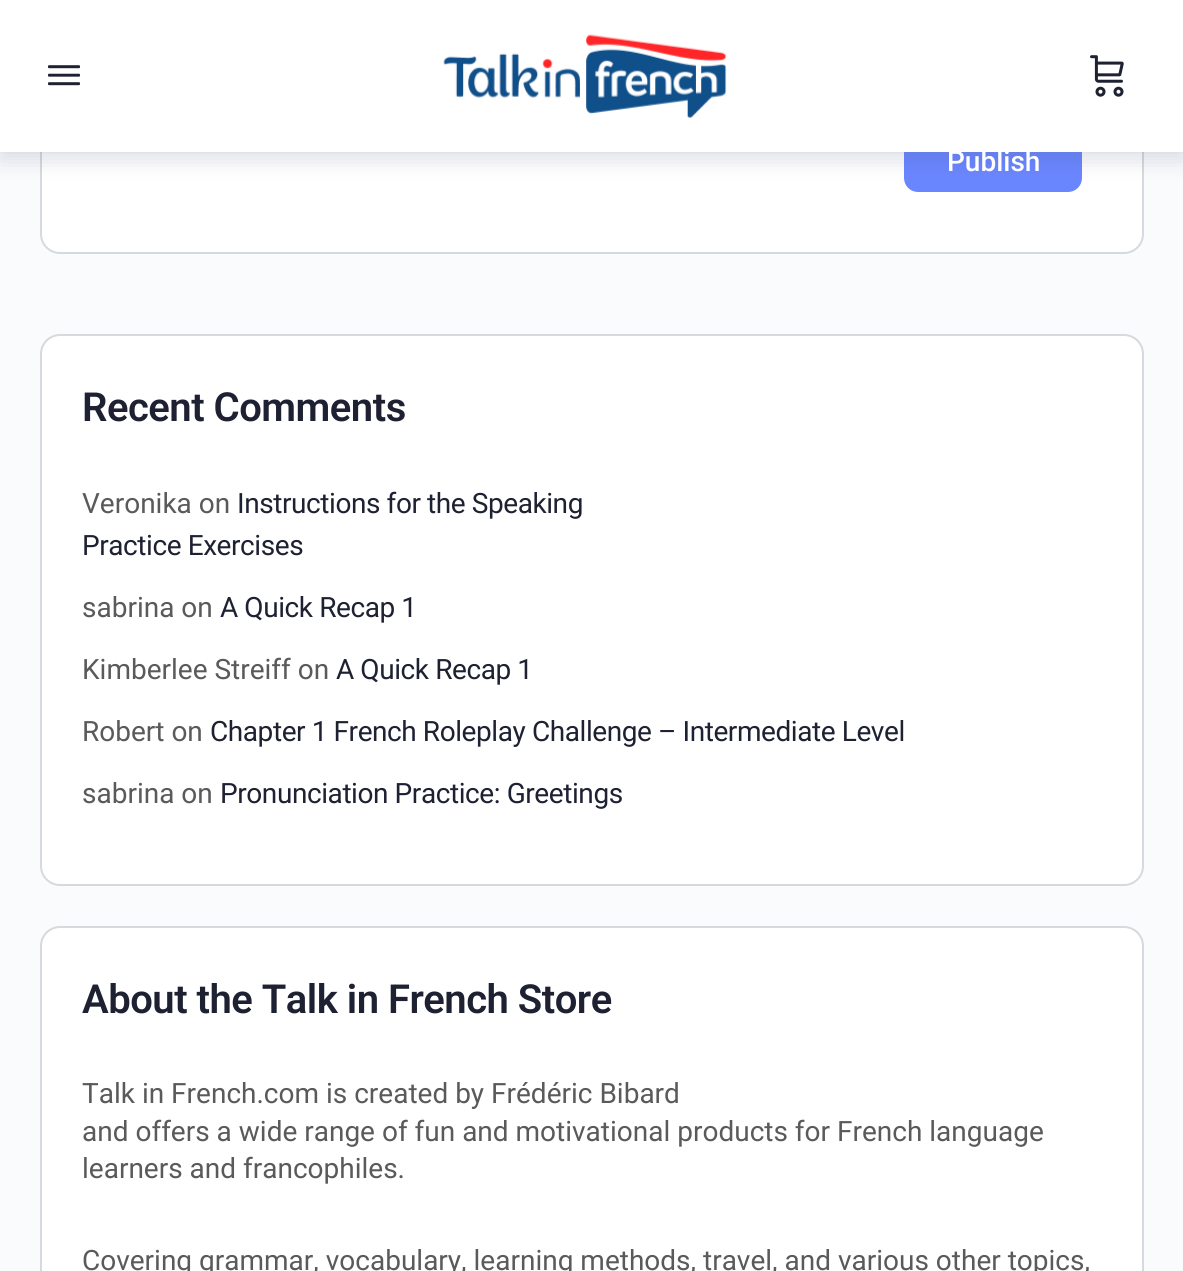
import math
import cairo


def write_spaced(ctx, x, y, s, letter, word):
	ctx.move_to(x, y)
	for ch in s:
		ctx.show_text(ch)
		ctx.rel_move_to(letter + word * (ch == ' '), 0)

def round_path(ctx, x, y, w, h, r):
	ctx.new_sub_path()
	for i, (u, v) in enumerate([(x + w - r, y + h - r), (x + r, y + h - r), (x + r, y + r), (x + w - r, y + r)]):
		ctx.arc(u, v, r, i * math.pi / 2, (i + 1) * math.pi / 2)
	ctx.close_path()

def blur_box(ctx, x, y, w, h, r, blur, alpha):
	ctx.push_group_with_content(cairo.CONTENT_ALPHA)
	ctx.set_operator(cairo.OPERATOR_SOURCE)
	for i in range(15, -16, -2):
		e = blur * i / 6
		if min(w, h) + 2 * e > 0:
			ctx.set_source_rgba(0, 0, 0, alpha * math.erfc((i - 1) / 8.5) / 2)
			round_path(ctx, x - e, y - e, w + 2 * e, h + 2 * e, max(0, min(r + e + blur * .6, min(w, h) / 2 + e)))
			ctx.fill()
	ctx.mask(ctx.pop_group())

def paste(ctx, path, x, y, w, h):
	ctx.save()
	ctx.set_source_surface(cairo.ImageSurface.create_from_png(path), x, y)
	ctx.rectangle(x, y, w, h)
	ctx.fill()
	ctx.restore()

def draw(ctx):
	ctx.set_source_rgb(0.98, 0.984, 0.992)
	ctx.paint()
	ctx.set_source_rgb(1, 1, 1)
	round_path(ctx, 41, -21, 1102, 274, 19)
	ctx.fill_preserve()
	ctx.set_source_rgb(0.839, 0.851, 0.867)
	ctx.stroke()
	ctx.set_source_rgb(0.416, 0.525, 1)
	round_path(ctx, 905, 125, 176, 66, 13)
	ctx.fill_preserve()
	ctx.stroke()
	ctx.set_source_rgb(0.255, 0.278, 0.424)
	blur_box(ctx, 0, 10, 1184, 152, 0, 10, 0.15)
	ctx.set_source_rgba(0.545, 0.553, 0.616, 0.05)
	ctx.rectangle(0, 152, 1183, 2)
	ctx.fill()
	ctx.set_source_rgb(1, 1, 1)
	ctx.rectangle(0, 0, 1183, 152)
	ctx.fill()
	paste(ctx, 'media/1.png', 48, 65, 32, 21)
	paste(ctx, 'media/2.png', 443, 34, 284, 84)
	paste(ctx, 'media/3.png', 1090, 55, 34, 42)
	ctx.select_font_face('Roboto Medium')
	ctx.set_font_size(28)
	ctx.move_to(947, 171)
	ctx.show_text('Publish')
	round_path(ctx, 41, 335, 1102, 550, 19)
	ctx.fill_preserve()
	ctx.set_source_rgb(0.839, 0.851, 0.867)
	ctx.stroke()
	ctx.select_font_face('Roboto SemiBold')
	ctx.set_font_size(40)
	ctx.set_source_rgb(0.118, 0.129, 0.196)
	write_spaced(ctx, 82, 421, 'Recent Comments', -0.5, 0)
	ctx.select_font_face('Roboto')
	ctx.set_font_size(28)
	ctx.set_source_rgb(0.353, 0.353, 0.353)
	ctx.move_to(82, 513)
	ctx.show_text('Veronika on')
	ctx.set_source_rgb(0.118, 0.129, 0.196)
	write_spaced(ctx, 237, 513, 'Instructions for the Speaking', -0.42, 0)
	write_spaced(ctx, 82, 555, 'Practice Exercises', -0.42, 0)
	ctx.set_source_rgb(0.353, 0.353, 0.353)
	ctx.move_to(82, 617)
	ctx.show_text('sabrina on')
	ctx.set_source_rgb(0.118, 0.129, 0.196)
	write_spaced(ctx, 220, 617, 'A Quick Recap 1', -0.42, 0)
	ctx.set_source_rgb(0.353, 0.353, 0.353)
	ctx.move_to(82, 679)
	ctx.show_text('Kimberlee Streiff on')
	ctx.set_source_rgb(0.118, 0.129, 0.196)
	write_spaced(ctx, 336, 679, 'A Quick Recap 1', -0.42, 0)
	ctx.set_source_rgb(0.353, 0.353, 0.353)
	ctx.move_to(82, 741)
	ctx.show_text('Robert on')
	ctx.set_source_rgb(0.118, 0.129, 0.196)
	write_spaced(ctx, 210, 741, 'Chapter 1 French Roleplay Challenge – Intermediate Level', -0.42, 0)
	ctx.set_source_rgb(0.353, 0.353, 0.353)
	ctx.move_to(82, 803)
	ctx.show_text('sabrina on')
	ctx.set_source_rgb(0.118, 0.129, 0.196)
	write_spaced(ctx, 220, 803, 'Pronunciation Practice: Greetings', -0.42, 0)
	ctx.set_source_rgb(1, 1, 1)
	round_path(ctx, 41, 927, 1102, 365, 19)
	ctx.fill_preserve()
	ctx.set_source_rgb(0.839, 0.851, 0.867)
	ctx.stroke()
	ctx.select_font_face('Roboto SemiBold')
	ctx.set_font_size(40)
	ctx.set_source_rgb(0.118, 0.129, 0.196)
	write_spaced(ctx, 82, 1013, 'About the Talk in French Store', -0.5, 0)
	ctx.select_font_face('Roboto')
	ctx.set_font_size(28)
	ctx.set_source_rgb(0.353, 0.353, 0.353)
	for x, y, s in [
		(82, 1103, 'Talk in French.com is created by Frédéric Bibard'),
		(82, 1141, 'and offers a wide range of fun and motivational products for French language'),
		(82, 1178, 'learners and francophiles.'),
		(82, 1270, 'Covering grammar, vocabulary, learning methods, travel, and various other topics,'),
	]:
		ctx.move_to(x, y)
		ctx.show_text(s)


surface = cairo.ImageSurface(cairo.FORMAT_RGB24, 1183, 1271)
ctx = cairo.Context(surface)
options = cairo.FontOptions()
options.set_hint_metrics(cairo.HINT_METRICS_OFF)
options.set_hint_style(cairo.HINT_STYLE_NONE)
ctx.set_font_options(options)
ctx.set_miter_limit(4)
draw(ctx)
surface.write_to_png('image.png')
